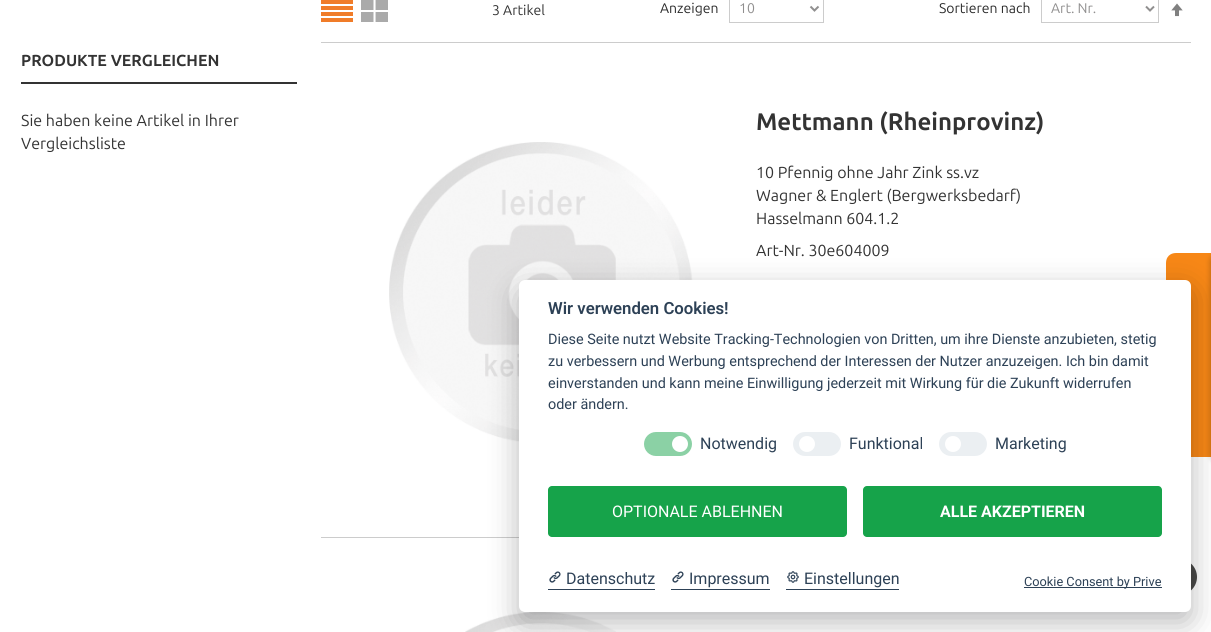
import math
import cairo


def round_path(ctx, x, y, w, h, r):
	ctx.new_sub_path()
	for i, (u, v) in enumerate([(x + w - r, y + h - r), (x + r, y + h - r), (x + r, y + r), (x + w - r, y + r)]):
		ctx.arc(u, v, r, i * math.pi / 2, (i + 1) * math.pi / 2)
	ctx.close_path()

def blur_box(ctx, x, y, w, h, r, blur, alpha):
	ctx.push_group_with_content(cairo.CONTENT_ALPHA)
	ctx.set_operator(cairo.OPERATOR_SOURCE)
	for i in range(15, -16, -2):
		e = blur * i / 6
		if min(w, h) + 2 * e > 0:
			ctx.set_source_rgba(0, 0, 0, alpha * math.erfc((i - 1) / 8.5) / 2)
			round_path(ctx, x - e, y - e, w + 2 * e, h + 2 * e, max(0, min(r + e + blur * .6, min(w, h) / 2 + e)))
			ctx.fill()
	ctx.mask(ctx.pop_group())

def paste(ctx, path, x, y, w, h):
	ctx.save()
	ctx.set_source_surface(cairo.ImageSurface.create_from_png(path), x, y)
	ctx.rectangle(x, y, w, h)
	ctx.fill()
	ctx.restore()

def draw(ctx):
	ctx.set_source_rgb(1, 1, 1)
	ctx.paint()
	ctx.set_source_rgb(0.2, 0.2, 0.2)
	ctx.rectangle(21, 82, 276, 2)
	ctx.fill()
	ctx.select_font_face('Ubuntu', cairo.FONT_SLANT_NORMAL, cairo.FONT_WEIGHT_BOLD)
	ctx.set_font_size(16)
	ctx.move_to(21, 66)
	ctx.show_text('PRODUKTE VERGLEICHEN')
	ctx.select_font_face('Ubuntu')
	ctx.move_to(21, 126)
	ctx.show_text('Sie haben keine Artikel in Ihrer')
	ctx.move_to(21, 149)
	ctx.show_text('Vergleichsliste')
	ctx.set_source_rgb(0.8, 0.8, 0.8)
	ctx.rectangle(321, 42, 870, 1)
	ctx.fill()
	paste(ctx, 'media/1.png', 321, 0, 32, 22)
	paste(ctx, 'media/2.png', 361, 0, 27, 22)
	ctx.set_font_size(14)
	ctx.set_source_rgb(0.2, 0.2, 0.2)
	ctx.move_to(492, 15)
	ctx.show_text('3 Artikel')
	ctx.set_source_rgb(0.169, 0.169, 0.169)
	ctx.move_to(660, 13)
	ctx.show_text('Anzeigen')
	ctx.rectangle(729.5, -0.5, 94, 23)
	ctx.set_source_rgb(0.8, 0.8, 0.8)
	ctx.set_line_width(1)
	ctx.stroke()
	ctx.new_path()
	ctx.move_to(810.5, 6.5)
	ctx.line_to(814.5, 10.5)
	ctx.line_to(818.5, 6.5)
	ctx.set_source_rgb(0.565, 0.561, 0.561)
	ctx.set_line_width(2)
	ctx.stroke()
	ctx.move_to(739, 13)
	ctx.show_text('10')
	ctx.set_source_rgb(0.169, 0.169, 0.169)
	ctx.move_to(939, 13)
	ctx.show_text('Sortieren nach')
	ctx.rectangle(1041.5, -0.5, 117, 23)
	ctx.set_source_rgb(0.8, 0.8, 0.8)
	ctx.set_line_width(1)
	ctx.stroke()
	ctx.new_path()
	ctx.move_to(1146, 6.5)
	ctx.line_to(1150, 10.5)
	ctx.line_to(1154, 6.5)
	ctx.set_source_rgb(0.565, 0.561, 0.561)
	ctx.set_line_width(2)
	ctx.stroke()
	ctx.move_to(1051, 13)
	ctx.show_text('Art. Nr.')
	paste(ctx, 'media/3.png', 1171, 3, 12, 14)
	ctx.set_source_rgb(0.8, 0.8, 0.8)
	ctx.rectangle(321, 537, 198, 1)
	ctx.fill()
	ctx.set_font_size(16)
	ctx.set_source_rgb(0.2, 0.2, 0.2)
	ctx.move_to(756, 256)
	ctx.show_text('Art-Nr. 30e604009')
	paste(ctx, 'media/4.png', 389, 142, 367, 301)
	ctx.select_font_face('Ubuntu', cairo.FONT_SLANT_NORMAL, cairo.FONT_WEIGHT_BOLD)
	ctx.set_font_size(24)
	ctx.move_to(756, 130)
	ctx.show_text('Mettmann (Rheinprovinz)')
	ctx.select_font_face('Ubuntu')
	ctx.set_font_size(16)
	for x, y, s in [
		(756, 178, '10 Pfennig ohne Jahr Zink ss.vz'),
		(756, 201, 'Wagner & Englert (Bergwerksbedarf)'),
		(756, 224, 'Hasselmann 604.1.2'),
	]:
		ctx.move_to(x, y)
		ctx.show_text(s)
	paste(ctx, 'media/5.png', 465, 612, 151, 20)
	ctx.set_source_rgb(0.286, 0.286, 0.282)
	ctx.arc(1179, 577, 19, 0, 2 * math.pi)
	ctx.fill_preserve()
	ctx.set_source_rgb(1, 1, 1)
	ctx.stroke()
	ctx.set_source_rgb(0.965, 0.529, 0.086)
	ctx.new_path()
	ctx.move_to(1211, 457)
	ctx.line_to(1176, 457)
	ctx.curve_to(1170, 457, 1166, 453, 1166, 447)
	ctx.line_to(1166, 263)
	ctx.curve_to(1166, 257, 1170, 253, 1176, 253)
	ctx.line_to(1211, 253)
	ctx.close_path()
	ctx.fill()
	ctx.set_source_rgb(0.008, 0.008, 0.012)
	blur_box(ctx, 519, 290, 672, 332, 6, 15, 0.28)
	ctx.set_source_rgb(1, 1, 1)
	round_path(ctx, 519, 280, 672, 332, 6)
	ctx.fill()
	ctx.select_font_face('Roboto SemiBold')
	ctx.set_font_size(16.75)
	ctx.set_source_rgb(0.176, 0.255, 0.337)
	ctx.move_to(548, 314)
	ctx.show_text('Wir verwenden Cookies!')
	ctx.select_font_face('Roboto')
	ctx.set_font_size(14.4)
	for x, y, s in [
		(548, 344, 'Diese Seite nutzt Website Tracking-Technologien von Dritten, um ihre Dienste anzubieten, stetig'),
		(548, 366, 'zu verbessern und Werbung entsprechend der Interessen der Nutzer anzuzeigen. Ich bin damit'),
		(548, 388, 'einverstanden und kann meine Einwilligung jederzeit mit Wirkung für die Zukunft widerrufen'),
		(548, 409, 'oder ändern.'),
	]:
		ctx.move_to(x, y)
		ctx.show_text(s)
	ctx.set_source_rgb(0.545, 0.82, 0.647)
	round_path(ctx, 644, 432, 48, 24, 12)
	ctx.fill()
	ctx.set_source_rgb(1, 1, 1)
	ctx.arc(680, 444, 8, 0, 2 * math.pi)
	ctx.fill()
	ctx.set_font_size(16)
	ctx.set_source_rgb(0.176, 0.255, 0.337)
	ctx.move_to(700, 449)
	ctx.show_text('Notwendig')
	ctx.set_source_rgb(0.918, 0.937, 0.949)
	round_path(ctx, 793, 432, 48, 24, 12)
	ctx.fill()
	ctx.set_source_rgb(1, 1, 1)
	ctx.arc(807, 444, 8, 0, 2 * math.pi)
	ctx.fill()
	ctx.set_source_rgb(0.176, 0.255, 0.337)
	ctx.move_to(849, 449)
	ctx.show_text('Funktional')
	ctx.set_source_rgb(0.918, 0.937, 0.949)
	round_path(ctx, 939, 432, 48, 24, 12)
	ctx.fill()
	ctx.set_source_rgb(1, 1, 1)
	ctx.arc(953, 444, 8, 0, 2 * math.pi)
	ctx.fill()
	ctx.set_source_rgb(0.176, 0.255, 0.337)
	ctx.move_to(995, 449)
	ctx.show_text('Marketing')
	ctx.set_source_rgb(0.086, 0.639, 0.29)
	round_path(ctx, 548, 486, 299, 51, 4)
	ctx.fill()
	ctx.set_source_rgb(1, 1, 1)
	ctx.move_to(612, 517)
	ctx.show_text('OPTIONALE ABLEHNEN')
	ctx.set_source_rgb(0.086, 0.639, 0.29)
	round_path(ctx, 863, 486, 299, 51, 4)
	ctx.fill()
	ctx.select_font_face('Roboto', cairo.FONT_SLANT_NORMAL, cairo.FONT_WEIGHT_BOLD)
	ctx.set_source_rgb(1, 1, 1)
	ctx.move_to(940, 517)
	ctx.show_text('ALLE AKZEPTIEREN')
	ctx.set_source_rgb(0.176, 0.255, 0.337)
	ctx.rectangle(548, 589, 107, 1)
	ctx.fill()
	paste(ctx, 'media/6.png', 549, 571, 12, 12)
	ctx.select_font_face('Roboto')
	ctx.move_to(566, 584)
	ctx.show_text('Datenschutz')
	ctx.rectangle(671, 589, 99, 1)
	ctx.fill()
	paste(ctx, 'media/6.png', 672, 571, 12, 12)
	ctx.move_to(689, 584)
	ctx.show_text('Impressum')
	ctx.rectangle(786, 589, 113, 1)
	ctx.fill()
	paste(ctx, 'media/7.png', 787, 571, 12, 12)
	ctx.move_to(804, 584)
	ctx.show_text('Einstellungen')
	ctx.rectangle(1024, 587, 138, 1)
	ctx.fill()
	ctx.set_font_size(12.75)
	ctx.move_to(1024, 586)
	ctx.show_text('Cookie Consent by Prive')
	ctx.set_source_rgb(0, 0, 0)
	blur_box(ctx, 1211, 254, 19, 208, 10, 3, 0.3)


surface = cairo.ImageSurface(cairo.FORMAT_RGB24, 1211, 632)
ctx = cairo.Context(surface)
options = cairo.FontOptions()
options.set_hint_metrics(cairo.HINT_METRICS_OFF)
options.set_hint_style(cairo.HINT_STYLE_NONE)
ctx.set_font_options(options)
ctx.set_miter_limit(4)
draw(ctx)
surface.write_to_png('image.png')
